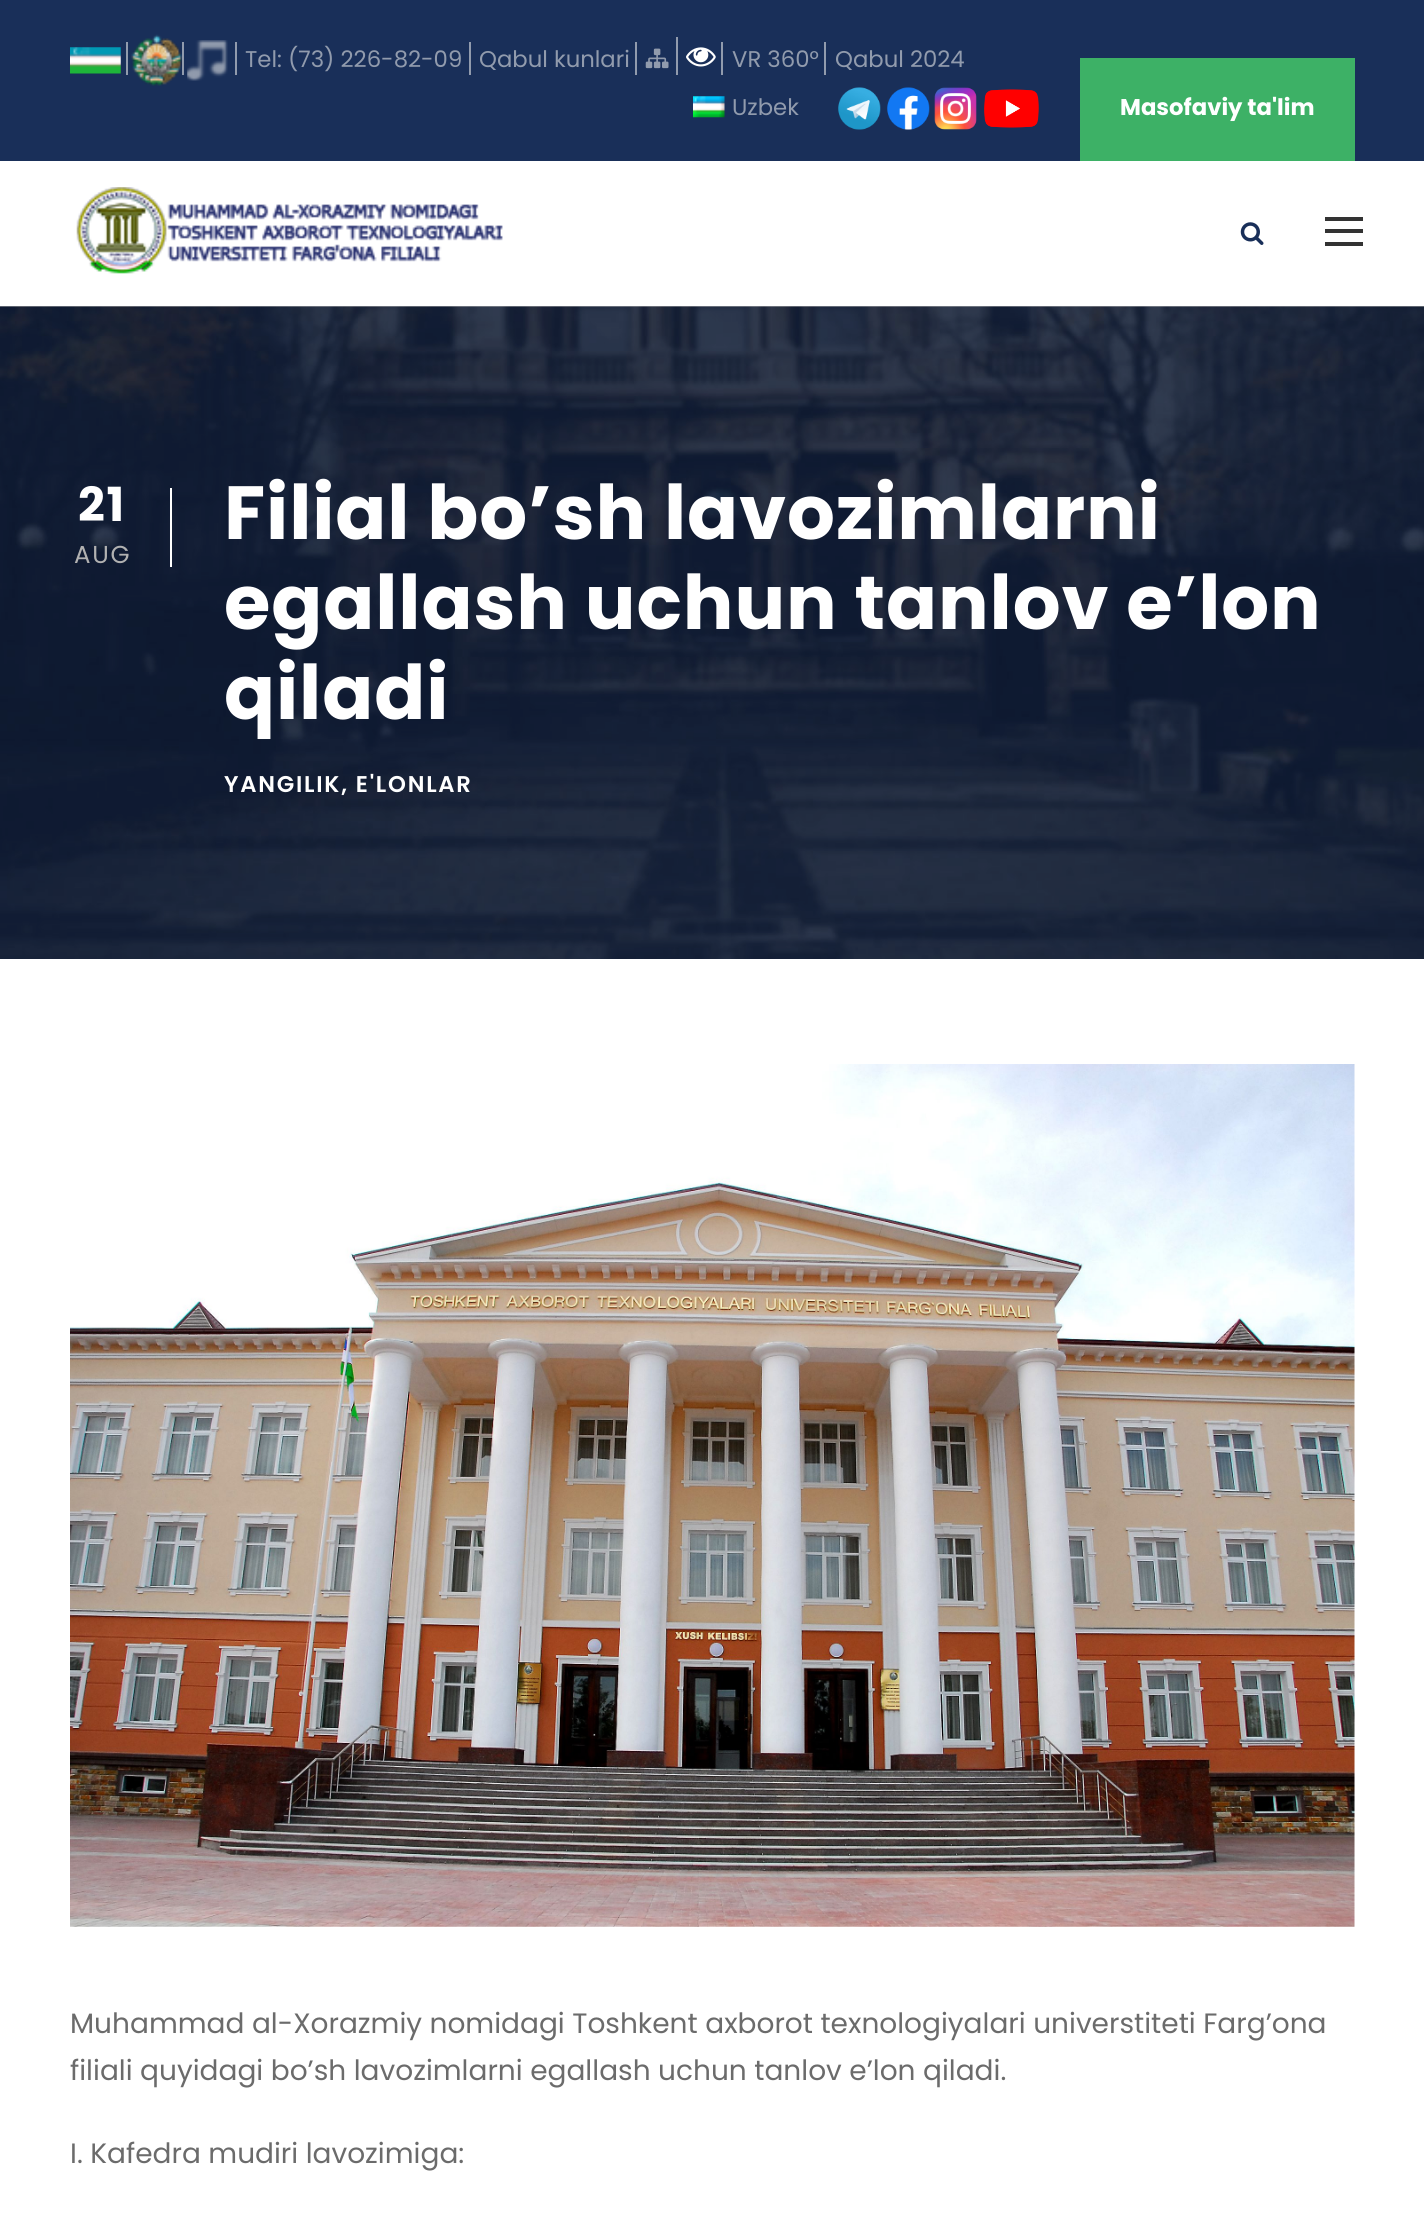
import math
import cairo


def write_spaced(ctx, x, y, s, letter, word):
	ctx.move_to(x, y)
	for ch in s:
		ctx.show_text(ch)
		ctx.rel_move_to(letter + word * (ch == ' '), 0)

def paste(ctx, path, x, y, w, h):
	ctx.save()
	ctx.set_source_surface(cairo.ImageSurface.create_from_png(path), x, y)
	ctx.rectangle(x, y, w, h)
	ctx.fill()
	ctx.restore()

def draw(ctx):
	ctx.set_source_rgb(1, 1, 1)
	ctx.paint()
	ctx.set_source_rgb(0.749, 0.749, 0.749)
	ctx.rectangle(0, 306, 1424, 1)
	ctx.fill()
	ctx.set_source_rgb(0.098, 0.184, 0.349)
	ctx.rectangle(0, 0, 1424, 161)
	ctx.fill()
	paste(ctx, 'media/1.png', 70, 47, 51, 27)
	ctx.set_source_rgb(0.569, 0.608, 0.678)
	ctx.rectangle(126, 42, 2, 33)
	ctx.fill()
	paste(ctx, 'media/2.png', 131, 34, 51, 52)
	ctx.rectangle(182, 42, 2, 33)
	ctx.fill()
	paste(ctx, 'media/3.png', 187, 40, 41, 41)
	ctx.select_font_face('Poppins')
	ctx.set_font_size(22.75)
	ctx.move_to(245, 67)
	ctx.show_text('Tel: (73) 226-82-09')
	ctx.rectangle(235, 42, 2, 33)
	ctx.fill()
	ctx.move_to(479, 67)
	ctx.show_text('Qabul kunlari')
	ctx.rectangle(469, 42, 2, 33)
	ctx.fill()
	ctx.rectangle(635, 42, 2, 33)
	ctx.fill()
	paste(ctx, 'media/4.png', 645, 48, 24, 21)
	ctx.rectangle(676, 37, 2, 38)
	ctx.fill()
	paste(ctx, 'media/5.png', 686, 47, 30, 20)
	ctx.move_to(732, 67)
	ctx.show_text('VR 360°')
	ctx.rectangle(721, 42, 2, 33)
	ctx.fill()
	ctx.move_to(835, 67)
	ctx.show_text('Qabul 2024')
	ctx.rectangle(824, 42, 2, 33)
	ctx.fill()
	paste(ctx, 'media/6.png', 693, 96, 32, 22)
	ctx.move_to(732, 115)
	ctx.show_text('Uzbek')
	paste(ctx, 'media/7.png', 838, 87, 43, 43)
	paste(ctx, 'media/8.png', 887, 87, 43, 43)
	paste(ctx, 'media/9.png', 934, 87, 43, 43)
	paste(ctx, 'media/10.png', 984, 89, 55, 39)
	ctx.set_source_rgb(0.239, 0.694, 0.4)
	ctx.rectangle(1080, 58, 275, 103)
	ctx.fill()
	ctx.select_font_face('Poppins', cairo.FONT_SLANT_NORMAL, cairo.FONT_WEIGHT_BOLD)
	ctx.set_source_rgb(1, 1, 1)
	ctx.move_to(1120, 115)
	ctx.show_text('Masofaviy ta\'lim')
	paste(ctx, 'media/11.png', 76, 187, 427, 87)
	paste(ctx, 'media/12.png', 1240, 222, 24, 23)
	ctx.set_source_rgb(0.2, 0.2, 0.2)
	ctx.rectangle(1325, 217, 38, 4)
	ctx.rectangle(1325, 229, 38, 4)
	ctx.rectangle(1325, 242, 38, 4)
	ctx.fill()
	paste(ctx, 'media/13.png', 0, 306, 1424, 653)
	ctx.set_source_rgb(1, 1, 1)
	ctx.rectangle(170, 488, 2, 79)
	ctx.fill()
	ctx.set_font_size(47)
	write_spaced(ctx, 78, 521, '21', 1.75, 0)
	ctx.select_font_face('Poppins')
	ctx.set_font_size(24.5)
	ctx.set_source_rgb(0.694, 0.694, 0.694)
	write_spaced(ctx, 74, 563, 'AUG', 1.75, 0)
	ctx.select_font_face('Poppins', cairo.FONT_SLANT_NORMAL, cairo.FONT_WEIGHT_BOLD)
	ctx.set_font_size(75.25)
	ctx.set_source_rgb(1, 1, 1)
	for x, y, s in [
		(224, 539, 'Filial boʼsh lavozimlarni'),
		(224, 629, 'egallash uchun tanlov eʼlon'),
		(224, 719, 'qiladi'),
	]:
		write_spaced(ctx, x, y, s, 0.9, 0)
	ctx.select_font_face('Poppins SemiBold')
	ctx.set_font_size(22.75)
	write_spaced(ctx, 224, 792, 'YANGILIK, E\'LONLAR', 1.75, 0)
	paste(ctx, 'media/14.png', 70, 1064, 1285, 863)
	ctx.select_font_face('Poppins')
	ctx.set_font_size(28)
	ctx.set_source_rgb(0.42, 0.42, 0.42)
	for x, y, s in [
		(70, 2033, 'Muhammad al-Xorazmiy nomidagi Toshkent axborot texnologiyalari universtiteti Fargʼona'),
		(70, 2080, 'filiali quyidagi boʼsh lavozimlarni egallash uchun tanlov eʼlon qiladi.'),
		(70, 2163, 'I. Kafedra mudiri lavozimiga:'),
	]:
		ctx.move_to(x, y)
		ctx.show_text(s)


surface = cairo.ImageSurface(cairo.FORMAT_RGB24, 1424, 2226)
ctx = cairo.Context(surface)
options = cairo.FontOptions()
options.set_hint_metrics(cairo.HINT_METRICS_OFF)
options.set_hint_style(cairo.HINT_STYLE_NONE)
ctx.set_font_options(options)
ctx.set_miter_limit(4)
draw(ctx)
surface.write_to_png('image.png')
